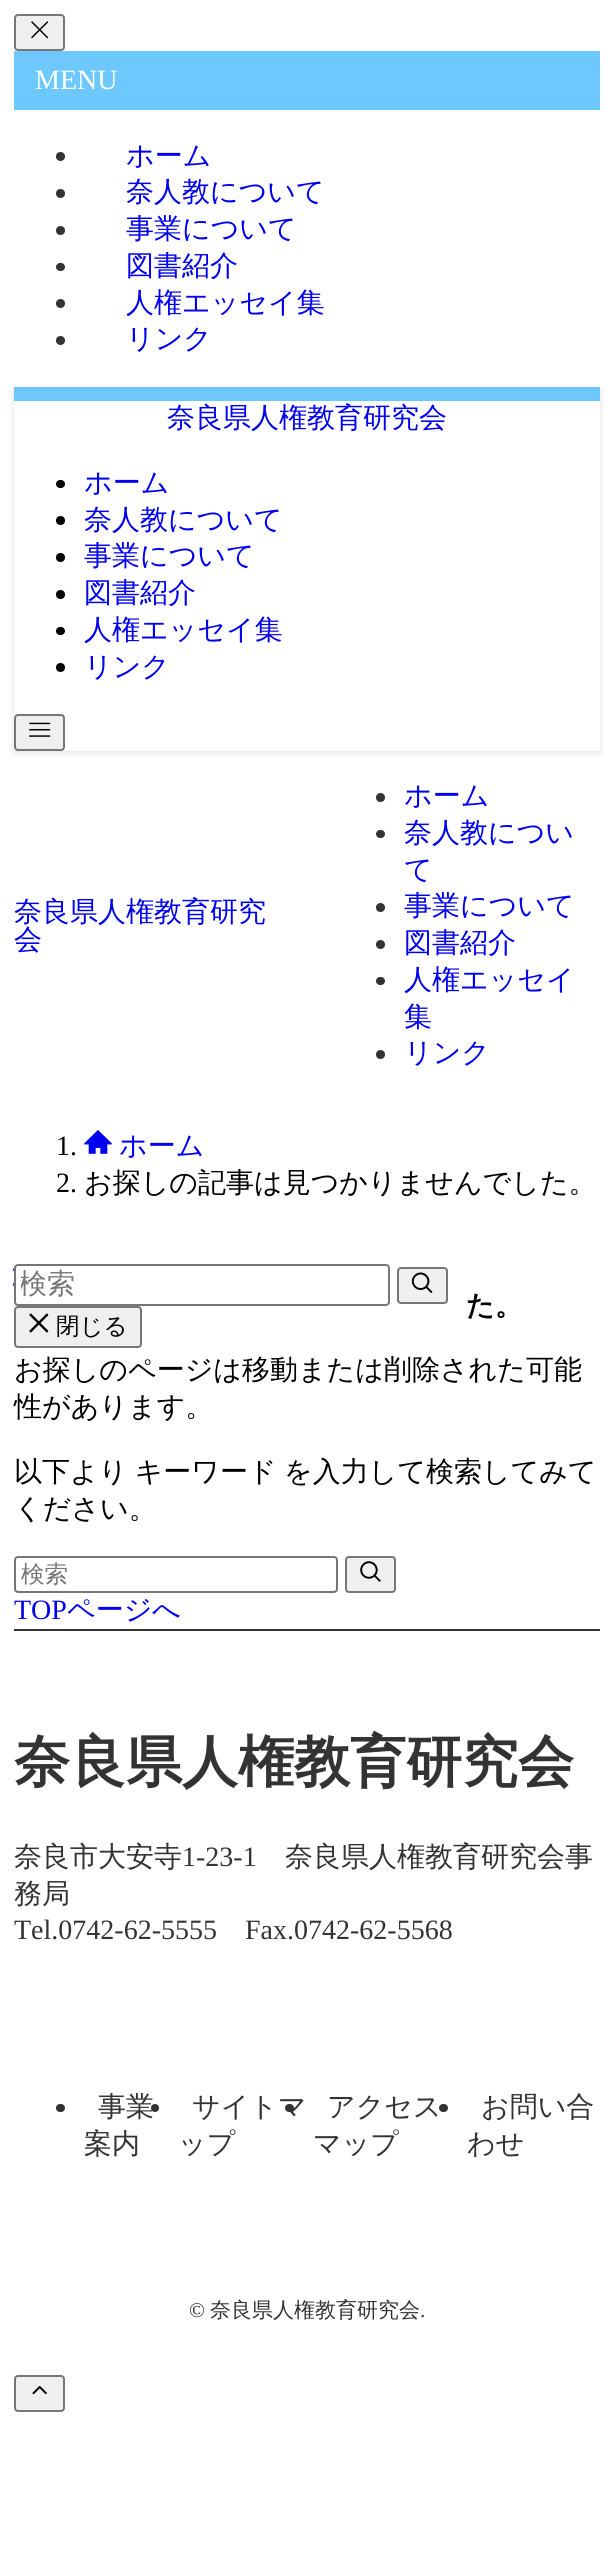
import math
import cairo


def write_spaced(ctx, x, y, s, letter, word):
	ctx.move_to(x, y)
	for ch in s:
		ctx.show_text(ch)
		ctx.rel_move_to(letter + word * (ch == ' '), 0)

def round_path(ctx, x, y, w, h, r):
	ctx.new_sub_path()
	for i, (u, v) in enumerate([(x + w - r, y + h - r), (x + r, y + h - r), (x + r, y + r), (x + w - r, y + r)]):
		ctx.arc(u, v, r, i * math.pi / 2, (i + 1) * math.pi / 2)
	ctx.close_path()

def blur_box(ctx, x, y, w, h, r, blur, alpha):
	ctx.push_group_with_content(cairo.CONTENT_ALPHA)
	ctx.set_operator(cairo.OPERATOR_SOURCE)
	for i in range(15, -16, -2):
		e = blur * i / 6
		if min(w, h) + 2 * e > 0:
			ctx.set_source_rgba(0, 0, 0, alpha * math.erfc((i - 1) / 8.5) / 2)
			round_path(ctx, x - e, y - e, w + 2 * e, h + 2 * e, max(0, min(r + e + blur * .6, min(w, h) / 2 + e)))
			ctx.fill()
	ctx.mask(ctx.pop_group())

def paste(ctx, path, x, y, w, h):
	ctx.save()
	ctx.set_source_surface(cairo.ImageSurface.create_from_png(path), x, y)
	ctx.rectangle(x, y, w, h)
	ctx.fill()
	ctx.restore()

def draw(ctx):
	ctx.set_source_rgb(1, 1, 1)
	ctx.paint()
	ctx.set_source_rgb(0.937, 0.937, 0.937)
	round_path(ctx, 15, 15, 49, 35, 3)
	ctx.fill_preserve()
	ctx.set_source_rgb(0.463, 0.463, 0.463)
	ctx.stroke()
	paste(ctx, 'media/1.png', 31, 21, 18, 18)
	ctx.set_source_rgb(0.427, 0.784, 0.992)
	ctx.rectangle(14, 51, 586, 59)
	ctx.fill()
	ctx.select_font_face('Liberation Serif')
	ctx.set_font_size(28)
	ctx.set_source_rgb(1, 1, 1)
	ctx.move_to(35, 89)
	ctx.show_text('MENU')
	ctx.set_source_rgb(0.2, 0.2, 0.2)
	ctx.new_path()
	ctx.arc(60.5, 156.5, 4.5, 0, 2 * math.pi)
	ctx.fill()
	ctx.select_font_face('WenQuanYi Zen Hei Medium')
	ctx.set_source_rgb(0, 0, 0.933)
	ctx.move_to(126, 165)
	ctx.show_text('ホーム')
	paste(ctx, 'media/2.png', 13, 1268, 1, 18)
	ctx.set_source_rgb(0.2, 0.2, 0.2)
	ctx.arc(60.5, 193.5, 4.5, 0, 2 * math.pi)
	ctx.fill()
	ctx.set_source_rgb(0, 0, 0.933)
	ctx.move_to(126, 201)
	ctx.show_text('奈人教について')
	paste(ctx, 'media/3.png', 13, 1268, 1, 18)
	ctx.set_source_rgb(0.2, 0.2, 0.2)
	ctx.arc(60.5, 230.5, 4.5, 0, 2 * math.pi)
	ctx.fill()
	ctx.set_source_rgb(0, 0, 0.933)
	ctx.move_to(126, 238)
	ctx.show_text('事業について')
	paste(ctx, 'media/4.png', 13, 1268, 1, 18)
	ctx.set_source_rgb(0.2, 0.2, 0.2)
	round_path(ctx, 56, 263, 9, 8, 4)
	ctx.fill()
	ctx.set_source_rgb(0, 0, 0.933)
	ctx.move_to(126, 275)
	ctx.show_text('図書紹介')
	paste(ctx, 'media/5.png', 13, 1268, 1, 18)
	ctx.set_source_rgb(0.2, 0.2, 0.2)
	ctx.arc(60.5, 303.5, 4.5, 0, 2 * math.pi)
	ctx.fill()
	ctx.set_source_rgb(0, 0, 0.933)
	ctx.move_to(126, 312)
	ctx.show_text('人権エッセイ集')
	paste(ctx, 'media/6.png', 13, 1268, 1, 18)
	ctx.set_source_rgb(0.2, 0.2, 0.2)
	ctx.arc(60.5, 340.5, 4.5, 0, 2 * math.pi)
	ctx.fill()
	ctx.set_source_rgb(0, 0, 0.933)
	ctx.move_to(126, 348)
	ctx.show_text('リンク')
	paste(ctx, 'media/7.png', 13, 1268, 1, 18)
	ctx.save()
	ctx.set_fill_rule(cairo.FILL_RULE_EVEN_ODD)
	ctx.new_path()
	ctx.move_to(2, 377)
	ctx.line_to(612, 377)
	ctx.line_to(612, 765)
	ctx.line_to(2, 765)
	ctx.close_path()
	ctx.move_to(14, 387)
	ctx.line_to(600, 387)
	ctx.line_to(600, 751)
	ctx.line_to(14, 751)
	ctx.close_path()
	ctx.clip()
	ctx.set_source_rgb(0, 0, 0)
	blur_box(ctx, 14, 389, 586, 364, 0, 3.5, 0.12)
	ctx.restore()
	ctx.set_source_rgb(0.427, 0.784, 0.992)
	ctx.rectangle(14, 387, 586, 14)
	ctx.fill()
	ctx.set_source_rgb(0, 0, 0.933)
	ctx.move_to(167, 427)
	ctx.show_text('奈良県人権教育研究会')
	ctx.set_source_rgb(0, 0, 0)
	round_path(ctx, 56, 480, 9, 8, 4)
	ctx.fill()
	ctx.set_source_rgb(0, 0, 0.933)
	ctx.move_to(84, 492)
	ctx.show_text('ホーム')
	ctx.set_source_rgb(0, 0, 0)
	ctx.new_path()
	ctx.arc(60.5, 520.5, 4.5, 0, 2 * math.pi)
	ctx.fill()
	ctx.set_source_rgb(0, 0, 0.933)
	ctx.move_to(84, 529)
	ctx.show_text('奈人教について')
	ctx.set_source_rgb(0, 0, 0)
	ctx.new_path()
	ctx.arc(60.5, 557.5, 4.5, 0, 2 * math.pi)
	ctx.fill()
	ctx.set_source_rgb(0, 0, 0.933)
	ctx.move_to(84, 565)
	ctx.show_text('事業について')
	ctx.set_source_rgb(0, 0, 0)
	ctx.new_path()
	ctx.arc(60.5, 594.5, 4.5, 0, 2 * math.pi)
	ctx.fill()
	ctx.set_source_rgb(0, 0, 0.933)
	ctx.move_to(84, 602)
	ctx.show_text('図書紹介')
	ctx.set_source_rgb(0, 0, 0)
	round_path(ctx, 56, 627, 9, 8, 4)
	ctx.fill()
	ctx.set_source_rgb(0, 0, 0.933)
	ctx.move_to(84, 639)
	ctx.show_text('人権エッセイ集')
	ctx.set_source_rgb(0, 0, 0)
	ctx.new_path()
	ctx.arc(60.5, 667.5, 4.5, 0, 2 * math.pi)
	ctx.fill()
	ctx.set_source_rgb(0, 0, 0.933)
	ctx.move_to(84, 676)
	ctx.show_text('リンク')
	ctx.set_source_rgb(0.937, 0.937, 0.937)
	round_path(ctx, 15, 715, 49, 35, 3)
	ctx.fill_preserve()
	ctx.set_source_rgb(0.463, 0.463, 0.463)
	ctx.stroke()
	paste(ctx, 'media/8.png', 29, 722, 22, 15)
	ctx.set_source_rgb(0, 0, 0.933)
	ctx.move_to(14, 921)
	ctx.show_text('奈良県人権教育研究')
	ctx.move_to(14, 949)
	ctx.show_text('会')
	ctx.set_source_rgb(0.2, 0.2, 0.2)
	ctx.new_path()
	ctx.arc(380.5, 797.5, 4.5, 0, 2 * math.pi)
	ctx.fill()
	ctx.set_source_rgb(0, 0, 0.933)
	ctx.move_to(404, 805)
	ctx.show_text('ホーム')
	ctx.set_source_rgb(0.2, 0.2, 0.2)
	round_path(ctx, 376, 830, 9, 8, 4)
	ctx.fill()
	ctx.set_source_rgb(0, 0, 0.933)
	ctx.move_to(404, 842)
	ctx.show_text('奈人教につい')
	ctx.move_to(404, 879)
	ctx.show_text('て')
	ctx.set_source_rgb(0.2, 0.2, 0.2)
	ctx.new_path()
	ctx.arc(380.5, 907.5, 4.5, 0, 2 * math.pi)
	ctx.fill()
	ctx.set_source_rgb(0, 0, 0.933)
	ctx.move_to(404, 915)
	ctx.show_text('事業について')
	ctx.set_source_rgb(0.2, 0.2, 0.2)
	ctx.new_path()
	ctx.arc(380.5, 944.5, 4.5, 0, 2 * math.pi)
	ctx.fill()
	ctx.set_source_rgb(0, 0, 0.933)
	ctx.move_to(404, 952)
	ctx.show_text('図書紹介')
	ctx.set_source_rgb(0.2, 0.2, 0.2)
	round_path(ctx, 376, 977, 9, 8, 4)
	ctx.fill()
	ctx.set_source_rgb(0, 0, 0.933)
	ctx.move_to(404, 989)
	ctx.show_text('人権エッセイ')
	ctx.move_to(404, 1026)
	ctx.show_text('集')
	ctx.set_source_rgb(0.2, 0.2, 0.2)
	ctx.new_path()
	ctx.arc(380.5, 1054.5, 4.5, 0, 2 * math.pi)
	ctx.fill()
	ctx.set_source_rgb(0, 0, 0.933)
	ctx.move_to(404, 1062)
	ctx.show_text('リンク')
	ctx.select_font_face('Liberation Serif')
	ctx.set_source_rgb(0, 0, 0)
	ctx.move_to(56, 1155)
	ctx.show_text('1.')
	paste(ctx, 'media/9.png', 84, 1130, 28, 24)
	ctx.select_font_face('WenQuanYi Zen Hei Medium')
	ctx.set_source_rgb(0, 0, 0.933)
	ctx.move_to(119, 1155)
	ctx.show_text('ホーム')
	ctx.select_font_face('Liberation Serif')
	ctx.set_source_rgb(0, 0, 0)
	ctx.move_to(56, 1192)
	ctx.show_text('2.')
	ctx.select_font_face('WenQuanYi Zen Hei Medium')
	ctx.move_to(84, 1192)
	ctx.show_text('お探しの記事は見つかりませんでした。')
	ctx.set_source_rgba(1, 1, 1, 0.1)
	ctx.rectangle(13, 1268, 568, 108)
	ctx.fill()
	ctx.save()
	ctx.set_fill_rule(cairo.FILL_RULE_EVEN_ODD)
	ctx.new_path()
	ctx.move_to(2, 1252)
	ctx.line_to(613, 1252)
	ctx.line_to(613, 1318)
	ctx.line_to(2, 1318)
	ctx.close_path()
	ctx.move_to(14, 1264)
	ctx.line_to(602, 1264)
	ctx.line_to(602, 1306)
	ctx.line_to(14, 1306)
	ctx.close_path()
	ctx.clip()
	ctx.set_source_rgb(1, 1, 1)
	blur_box(ctx, 14, 1264, 588, 42, 0, 3.5, 0.2)
	ctx.restore()
	round_path(ctx, 15, 1265, 374, 40, 3)
	ctx.set_source_rgb(0.463, 0.463, 0.463)
	ctx.stroke()
	ctx.save()
	ctx.rectangle(21, 1267, 362, 35)
	ctx.clip()
	ctx.set_source_rgb(0.459, 0.459, 0.459)
	ctx.move_to(19, 1293)
	ctx.show_text('検索')
	ctx.restore()
	ctx.set_source_rgb(0.937, 0.937, 0.937)
	round_path(ctx, 398, 1268, 49, 35, 3)
	ctx.fill_preserve()
	ctx.set_source_rgb(0.463, 0.463, 0.463)
	ctx.stroke()
	paste(ctx, 'media/10.png', 411, 1272, 22, 21)
	ctx.set_source_rgb(0.937, 0.937, 0.937)
	round_path(ctx, 15, 1307, 126, 40, 3)
	ctx.fill_preserve()
	ctx.set_source_rgb(0.463, 0.463, 0.463)
	ctx.stroke()
	paste(ctx, 'media/11.png', 29, 1313, 20, 20)
	ctx.set_font_size(23.5)
	ctx.set_source_rgb(0, 0, 0)
	ctx.move_to(56, 1334)
	ctx.show_text('閉じる')
	ctx.select_font_face('WenQuanYi Zen Hei', cairo.FONT_SLANT_NORMAL, cairo.FONT_WEIGHT_BOLD)
	ctx.set_font_size(28)
	ctx.move_to(466, 1315)
	ctx.show_text('た。')
	ctx.select_font_face('WenQuanYi Zen Hei Medium')
	ctx.move_to(14, 1379)
	ctx.show_text('お探しのページは移動または削除された可能')
	ctx.move_to(14, 1416)
	ctx.show_text('性があります。')
	write_spaced(ctx, 14, 1481, '以下より キーワード を入力して検索してみて', 0, -1)
	ctx.move_to(14, 1518)
	ctx.show_text('ください。')
	round_path(ctx, 15, 1557, 322, 35, 3)
	ctx.set_source_rgb(0.463, 0.463, 0.463)
	ctx.stroke()
	ctx.set_font_size(23.5)
	ctx.set_source_rgb(0.459, 0.459, 0.459)
	ctx.move_to(21, 1582)
	ctx.show_text('検索')
	ctx.set_source_rgb(0.937, 0.937, 0.937)
	round_path(ctx, 346, 1557, 49, 35, 3)
	ctx.fill_preserve()
	ctx.set_source_rgb(0.463, 0.463, 0.463)
	ctx.stroke()
	paste(ctx, 'media/12.png', 360, 1561, 21, 21)
	ctx.select_font_face('Liberation Serif')
	ctx.set_font_size(28)
	ctx.set_source_rgb(0, 0, 0.933)
	ctx.move_to(14, 1619)
	ctx.show_text('TOP')
	ctx.select_font_face('WenQuanYi Zen Hei Medium')
	ctx.move_to(67, 1619)
	ctx.show_text('ページへ')
	ctx.set_source_rgb(0.2, 0.2, 0.2)
	ctx.rectangle(14, 1629, 586, 2)
	ctx.fill()
	ctx.select_font_face('WenQuanYi Zen Hei', cairo.FONT_SLANT_NORMAL, cairo.FONT_WEIGHT_BOLD)
	ctx.set_font_size(56)
	ctx.move_to(14, 1781)
	ctx.show_text('奈良県人権教育研究会')
	ctx.select_font_face('WenQuanYi Zen Hei Medium')
	ctx.set_font_size(28)
	ctx.move_to(14, 1866)
	ctx.show_text('奈良市大安寺')
	ctx.select_font_face('Liberation Serif')
	ctx.move_to(182, 1866)
	ctx.show_text('1-23-1')
	ctx.select_font_face('WenQuanYi Zen Hei Medium')
	ctx.move_to(285, 1866)
	ctx.show_text('奈良県人権教育研究会事')
	ctx.move_to(14, 1903)
	ctx.show_text('務局')
	ctx.select_font_face('Liberation Serif')
	ctx.move_to(14, 1939)
	ctx.show_text('Tel.0742-62-5555')
	ctx.move_to(245, 1939)
	ctx.show_text('Fax.0742-62-5568')
	round_path(ctx, 56, 2104, 9, 8, 4)
	ctx.fill()
	ctx.select_font_face('WenQuanYi Zen Hei Medium')
	ctx.move_to(98, 2116)
	ctx.show_text('事業')
	ctx.move_to(84, 2153)
	ctx.show_text('案内')
	ctx.new_path()
	ctx.arc(155, 2108, 4, 0, 2 * math.pi)
	ctx.fill()
	ctx.move_to(192, 2116)
	ctx.show_text('サイトマ')
	ctx.move_to(178, 2153)
	ctx.show_text('ップ')
	round_path(ctx, 285, 2104, 9, 8, 4)
	ctx.fill()
	ctx.move_to(327, 2116)
	ctx.show_text('アクセス')
	ctx.move_to(313, 2153)
	ctx.show_text('マップ')
	round_path(ctx, 439, 2104, 9, 8, 4)
	ctx.fill()
	ctx.move_to(481, 2116)
	ctx.show_text('お問い合')
	ctx.move_to(467, 2153)
	ctx.show_text('わせ')
	ctx.select_font_face('Liberation Serif')
	ctx.set_font_size(21)
	ctx.move_to(189, 2317)
	ctx.show_text('©')
	ctx.select_font_face('WenQuanYi Zen Hei Medium')
	ctx.move_to(210, 2317)
	ctx.show_text('奈良県人権教育研究会')
	ctx.select_font_face('Liberation Serif')
	ctx.move_to(420, 2317)
	ctx.show_text('.')
	ctx.set_source_rgb(0.937, 0.937, 0.937)
	round_path(ctx, 15, 2376, 49, 35, 3)
	ctx.fill_preserve()
	ctx.set_source_rgb(0.463, 0.463, 0.463)
	ctx.stroke()
	paste(ctx, 'media/13.png', 32, 2386, 15, 9)


surface = cairo.ImageSurface(cairo.FORMAT_RGB24, 613, 2555)
ctx = cairo.Context(surface)
options = cairo.FontOptions()
options.set_hint_metrics(cairo.HINT_METRICS_OFF)
options.set_hint_style(cairo.HINT_STYLE_NONE)
ctx.set_font_options(options)
ctx.set_miter_limit(4)
draw(ctx)
surface.write_to_png('image.png')
